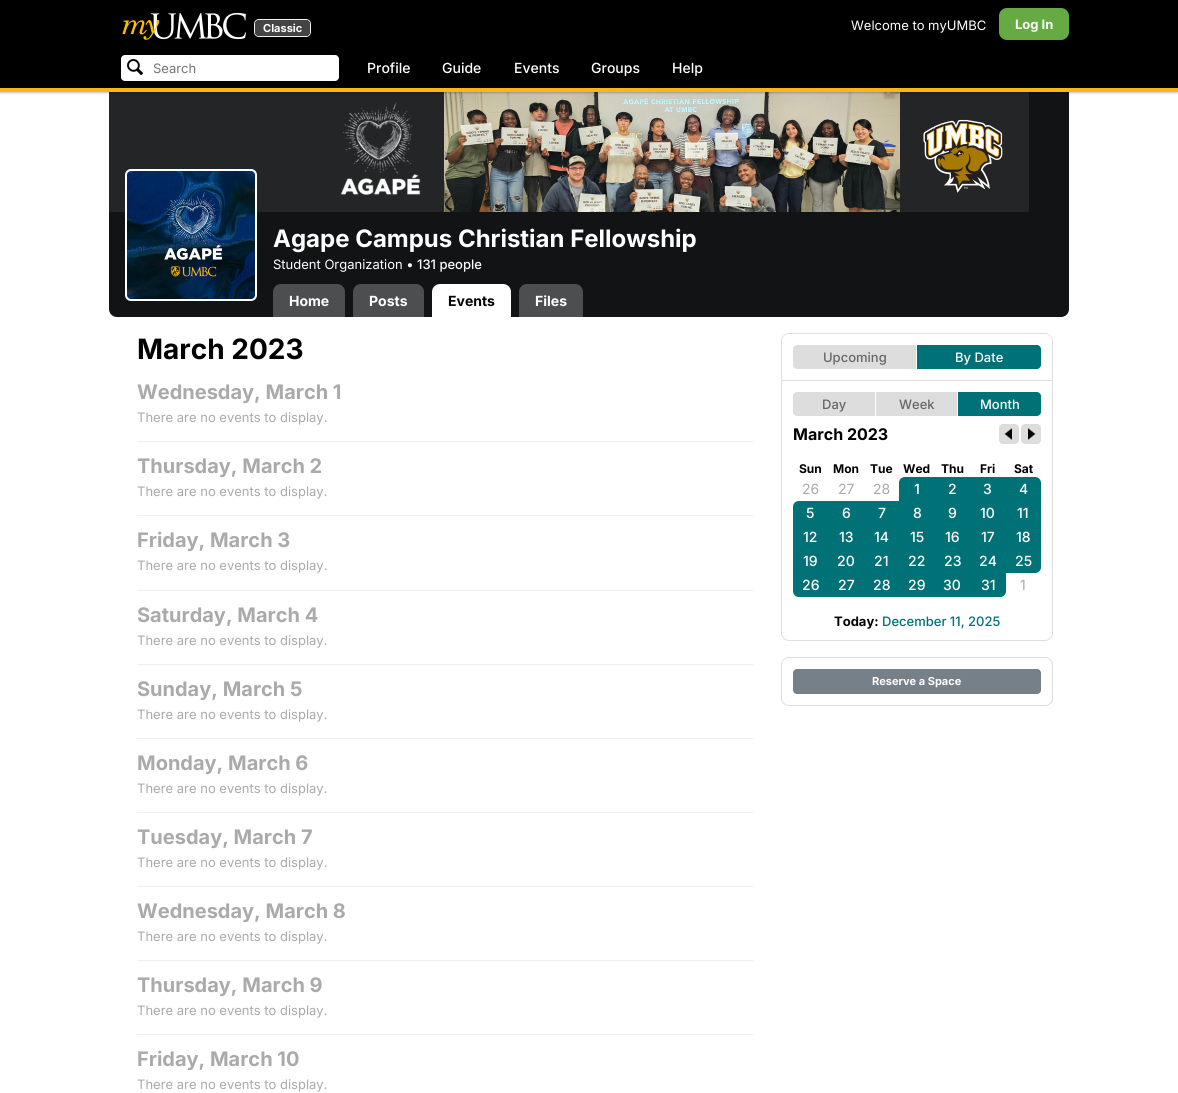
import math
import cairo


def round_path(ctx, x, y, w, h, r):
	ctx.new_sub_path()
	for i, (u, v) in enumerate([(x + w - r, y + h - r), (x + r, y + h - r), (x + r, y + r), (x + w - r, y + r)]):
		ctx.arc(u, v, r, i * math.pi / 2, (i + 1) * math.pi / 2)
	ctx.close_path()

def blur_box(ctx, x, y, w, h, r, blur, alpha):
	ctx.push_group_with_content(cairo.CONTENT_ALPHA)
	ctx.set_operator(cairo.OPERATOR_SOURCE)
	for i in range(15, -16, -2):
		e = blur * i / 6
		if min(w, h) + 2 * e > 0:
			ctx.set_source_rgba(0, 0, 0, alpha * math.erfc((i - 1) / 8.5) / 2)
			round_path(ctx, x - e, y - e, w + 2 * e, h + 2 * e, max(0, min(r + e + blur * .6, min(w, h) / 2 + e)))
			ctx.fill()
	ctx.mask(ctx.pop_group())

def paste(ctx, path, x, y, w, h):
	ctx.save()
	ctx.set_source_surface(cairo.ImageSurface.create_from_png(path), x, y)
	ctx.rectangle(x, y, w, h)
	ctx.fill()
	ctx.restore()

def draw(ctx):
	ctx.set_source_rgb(1, 1, 1)
	ctx.paint()
	ctx.set_source_rgb(0.067, 0.075, 0.082)
	ctx.rectangle(1029, 92, 40, 120)
	ctx.fill()
	paste(ctx, 'media/3.png', 109, 92, 920, 120)
	ctx.set_source_rgb(0, 0, 0)
	blur_box(ctx, 0, 1, 1178, 92, 0, 1, 0.24)
	ctx.set_source_rgb(0, 0, 0)
	ctx.rectangle(0, 0, 1178, 88)
	ctx.fill()
	ctx.set_source_rgb(0.992, 0.71, 0.082)
	ctx.rectangle(0, 88, 1178, 4)
	ctx.fill()
	paste(ctx, 'media/1.png', 122, 12, 124, 28)
	round_path(ctx, 254.5, 19.5, 56, 17, 4.5)
	ctx.set_source_rgb(0.941, 0.941, 0.941)
	ctx.set_line_width(1)
	ctx.stroke()
	ctx.set_source_rgb(0.267, 0.267, 0.267)
	round_path(ctx, 255, 20, 55, 16, 4)
	ctx.fill()
	ctx.select_font_face('Inter', cairo.FONT_SLANT_NORMAL, cairo.FONT_WEIGHT_BOLD)
	ctx.set_font_size(11)
	ctx.set_source_rgb(1, 1, 1)
	ctx.move_to(263, 32)
	ctx.show_text('Classic')
	ctx.select_font_face('Inter')
	ctx.set_font_size(13)
	ctx.move_to(851, 30)
	ctx.show_text('Welcome to myUMBC')
	ctx.set_source_rgb(0.4, 0.667, 0.267)
	round_path(ctx, 999, 8, 70, 32, 8)
	ctx.fill()
	ctx.select_font_face('Inter', cairo.FONT_SLANT_NORMAL, cairo.FONT_WEIGHT_BOLD)
	ctx.set_source_rgb(1, 1, 1)
	ctx.move_to(1015, 29)
	ctx.show_text('Log In')
	round_path(ctx, 121, 55, 218, 26, 4)
	ctx.fill()
	paste(ctx, 'media/2.png', 127, 59, 16, 16)
	ctx.select_font_face('Inter')
	ctx.set_source_rgb(0.459, 0.459, 0.459)
	ctx.move_to(153, 73)
	ctx.show_text('Search')
	ctx.select_font_face('Inter Medium')
	ctx.set_font_size(14)
	ctx.set_source_rgb(1, 1, 1)
	for x, y, s in [
		(367, 73, 'Profile'),
		(442, 73, 'Guide'),
		(514, 73, 'Events'),
		(591, 73, 'Groups'),
		(672, 73, 'Help'),
	]:
		ctx.move_to(x, y)
		ctx.show_text(s)
	ctx.set_source_rgb(0.067, 0.075, 0.082)
	ctx.rectangle(109, 212, 960, 66)
	ctx.fill()
	ctx.new_path()
	ctx.move_to(109, 278)
	ctx.line_to(1069, 278)
	ctx.line_to(1069, 309)
	ctx.curve_to(1069, 313.5, 1065.5, 317, 1061, 317)
	ctx.line_to(117, 317)
	ctx.curve_to(112.5, 317, 109, 313.5, 109, 309)
	ctx.close_path()
	ctx.fill()
	paste(ctx, 'media/4.png', 127, 171, 128, 128)
	round_path(ctx, 126, 170, 130, 130, 5)
	ctx.set_source_rgb(1, 1, 1)
	ctx.set_line_width(2)
	ctx.stroke()
	ctx.select_font_face('Inter', cairo.FONT_SLANT_NORMAL, cairo.FONT_WEIGHT_BOLD)
	ctx.set_font_size(24)
	ctx.move_to(273, 247)
	ctx.show_text('Agape Campus Christian Fellowship')
	ctx.select_font_face('Inter')
	ctx.set_font_size(13)
	ctx.move_to(273, 269)
	ctx.show_text('Student Organization •')
	ctx.select_font_face('Inter Medium')
	ctx.move_to(417, 269)
	ctx.show_text('131 people')
	ctx.set_source_rgb(0.302, 0.306, 0.314)
	ctx.new_path()
	ctx.move_to(281, 284)
	ctx.line_to(337, 284)
	ctx.curve_to(341.5, 284, 345, 287.5, 345, 292)
	ctx.line_to(345, 317)
	ctx.line_to(273, 317)
	ctx.line_to(273, 292)
	ctx.curve_to(273, 287.5, 276.5, 284, 281, 284)
	ctx.close_path()
	ctx.fill()
	ctx.select_font_face('Inter', cairo.FONT_SLANT_NORMAL, cairo.FONT_WEIGHT_BOLD)
	ctx.set_font_size(14)
	ctx.set_source_rgb(1, 1, 1)
	ctx.move_to(289, 306)
	ctx.show_text('Home')
	ctx.set_source_rgb(0.302, 0.306, 0.314)
	ctx.new_path()
	ctx.move_to(361, 284)
	ctx.line_to(416, 284)
	ctx.curve_to(420.5, 284, 424, 287.5, 424, 292)
	ctx.line_to(424, 317)
	ctx.line_to(353, 317)
	ctx.line_to(353, 292)
	ctx.curve_to(353, 287.5, 356.5, 284, 361, 284)
	ctx.close_path()
	ctx.fill()
	ctx.set_source_rgb(1, 1, 1)
	ctx.move_to(369, 306)
	ctx.show_text('Posts')
	ctx.new_path()
	ctx.move_to(440, 284)
	ctx.line_to(503, 284)
	ctx.curve_to(507.5, 284, 511, 287.5, 511, 292)
	ctx.line_to(511, 317)
	ctx.line_to(432, 317)
	ctx.line_to(432, 292)
	ctx.curve_to(432, 287.5, 435.5, 284, 440, 284)
	ctx.close_path()
	ctx.fill()
	ctx.set_source_rgb(0, 0, 0)
	ctx.move_to(448, 306)
	ctx.show_text('Events')
	ctx.set_source_rgb(0.302, 0.306, 0.314)
	ctx.new_path()
	ctx.move_to(527, 284)
	ctx.line_to(575, 284)
	ctx.curve_to(579.5, 284, 583, 287.5, 583, 292)
	ctx.line_to(583, 317)
	ctx.line_to(519, 317)
	ctx.line_to(519, 292)
	ctx.curve_to(519, 287.5, 522.5, 284, 527, 284)
	ctx.close_path()
	ctx.fill()
	ctx.set_source_rgb(1, 1, 1)
	ctx.move_to(535, 306)
	ctx.show_text('Files')
	ctx.set_font_size(28)
	ctx.set_source_rgb(0, 0, 0)
	ctx.move_to(137, 359)
	ctx.show_text('March 2023')
	ctx.set_font_size(20)
	ctx.set_source_rgb(0.667, 0.667, 0.667)
	ctx.move_to(137, 399)
	ctx.show_text('Wednesday, March 1')
	ctx.select_font_face('Inter')
	ctx.set_font_size(13)
	ctx.move_to(137, 422)
	ctx.show_text('There are no events to display.')
	ctx.set_source_rgb(0.933, 0.933, 0.933)
	ctx.rectangle(137, 441, 616, 1)
	ctx.fill()
	ctx.select_font_face('Inter', cairo.FONT_SLANT_NORMAL, cairo.FONT_WEIGHT_BOLD)
	ctx.set_font_size(20)
	ctx.set_source_rgb(0.667, 0.667, 0.667)
	ctx.move_to(137, 473)
	ctx.show_text('Thursday, March 2')
	ctx.select_font_face('Inter')
	ctx.set_font_size(13)
	ctx.move_to(137, 496)
	ctx.show_text('There are no events to display.')
	ctx.set_source_rgb(0.933, 0.933, 0.933)
	ctx.rectangle(137, 515, 616, 1)
	ctx.fill()
	ctx.select_font_face('Inter', cairo.FONT_SLANT_NORMAL, cairo.FONT_WEIGHT_BOLD)
	ctx.set_font_size(20)
	ctx.set_source_rgb(0.667, 0.667, 0.667)
	ctx.move_to(137, 547)
	ctx.show_text('Friday, March 3')
	ctx.select_font_face('Inter')
	ctx.set_font_size(13)
	ctx.move_to(137, 570)
	ctx.show_text('There are no events to display.')
	ctx.set_source_rgb(0.933, 0.933, 0.933)
	ctx.rectangle(137, 590, 616, 1)
	ctx.fill()
	ctx.select_font_face('Inter', cairo.FONT_SLANT_NORMAL, cairo.FONT_WEIGHT_BOLD)
	ctx.set_font_size(20)
	ctx.set_source_rgb(0.667, 0.667, 0.667)
	ctx.move_to(137, 622)
	ctx.show_text('Saturday, March 4')
	ctx.select_font_face('Inter')
	ctx.set_font_size(13)
	ctx.move_to(137, 645)
	ctx.show_text('There are no events to display.')
	ctx.set_source_rgb(0.933, 0.933, 0.933)
	ctx.rectangle(137, 664, 616, 1)
	ctx.fill()
	ctx.select_font_face('Inter', cairo.FONT_SLANT_NORMAL, cairo.FONT_WEIGHT_BOLD)
	ctx.set_font_size(20)
	ctx.set_source_rgb(0.667, 0.667, 0.667)
	ctx.move_to(137, 696)
	ctx.show_text('Sunday, March 5')
	ctx.select_font_face('Inter')
	ctx.set_font_size(13)
	ctx.move_to(137, 719)
	ctx.show_text('There are no events to display.')
	ctx.set_source_rgb(0.933, 0.933, 0.933)
	ctx.rectangle(137, 738, 616, 1)
	ctx.fill()
	ctx.select_font_face('Inter', cairo.FONT_SLANT_NORMAL, cairo.FONT_WEIGHT_BOLD)
	ctx.set_font_size(20)
	ctx.set_source_rgb(0.667, 0.667, 0.667)
	ctx.move_to(137, 770)
	ctx.show_text('Monday, March 6')
	ctx.select_font_face('Inter')
	ctx.set_font_size(13)
	ctx.move_to(137, 793)
	ctx.show_text('There are no events to display.')
	ctx.set_source_rgb(0.933, 0.933, 0.933)
	ctx.rectangle(137, 812, 616, 1)
	ctx.fill()
	ctx.select_font_face('Inter', cairo.FONT_SLANT_NORMAL, cairo.FONT_WEIGHT_BOLD)
	ctx.set_font_size(20)
	ctx.set_source_rgb(0.667, 0.667, 0.667)
	ctx.move_to(137, 844)
	ctx.show_text('Tuesday, March 7')
	ctx.select_font_face('Inter')
	ctx.set_font_size(13)
	ctx.move_to(137, 867)
	ctx.show_text('There are no events to display.')
	ctx.set_source_rgb(0.933, 0.933, 0.933)
	ctx.rectangle(137, 886, 616, 1)
	ctx.fill()
	ctx.select_font_face('Inter', cairo.FONT_SLANT_NORMAL, cairo.FONT_WEIGHT_BOLD)
	ctx.set_font_size(20)
	ctx.set_source_rgb(0.667, 0.667, 0.667)
	ctx.move_to(137, 918)
	ctx.show_text('Wednesday, March 8')
	ctx.select_font_face('Inter')
	ctx.set_font_size(13)
	ctx.move_to(137, 941)
	ctx.show_text('There are no events to display.')
	ctx.set_source_rgb(0.933, 0.933, 0.933)
	ctx.rectangle(137, 960, 616, 1)
	ctx.fill()
	ctx.select_font_face('Inter', cairo.FONT_SLANT_NORMAL, cairo.FONT_WEIGHT_BOLD)
	ctx.set_font_size(20)
	ctx.set_source_rgb(0.667, 0.667, 0.667)
	ctx.move_to(137, 992)
	ctx.show_text('Thursday, March 9')
	ctx.select_font_face('Inter')
	ctx.set_font_size(13)
	ctx.move_to(137, 1015)
	ctx.show_text('There are no events to display.')
	ctx.set_source_rgb(0.933, 0.933, 0.933)
	ctx.rectangle(137, 1034, 616, 1)
	ctx.fill()
	ctx.select_font_face('Inter', cairo.FONT_SLANT_NORMAL, cairo.FONT_WEIGHT_BOLD)
	ctx.set_font_size(20)
	ctx.set_source_rgb(0.667, 0.667, 0.667)
	ctx.move_to(137, 1066)
	ctx.show_text('Friday, March 10')
	ctx.select_font_face('Inter')
	ctx.set_font_size(13)
	ctx.move_to(137, 1089)
	ctx.show_text('There are no events to display.')
	ctx.set_source_rgb(0.867, 0.867, 0.867)
	ctx.set_fill_rule(cairo.FILL_RULE_EVEN_ODD)
	ctx.new_path()
	ctx.move_to(789, 333)
	ctx.line_to(1045, 333)
	ctx.curve_to(1049, 333, 1053, 337, 1053, 341)
	ctx.line_to(1053, 380)
	ctx.line_to(781, 380)
	ctx.line_to(781, 341)
	ctx.curve_to(781, 337, 785, 333, 789, 333)
	ctx.close_path()
	ctx.move_to(789, 334)
	ctx.line_to(1045, 334)
	ctx.curve_to(1049, 334, 1052, 337, 1052, 341)
	ctx.line_to(1052, 380)
	ctx.line_to(782, 380)
	ctx.line_to(782, 341)
	ctx.curve_to(782, 337, 785, 334, 789, 334)
	ctx.close_path()
	ctx.fill()
	ctx.new_path()
	ctx.move_to(797, 345)
	ctx.line_to(917, 345)
	ctx.line_to(917, 369)
	ctx.line_to(797, 369)
	ctx.curve_to(795, 369, 793, 367, 793, 365)
	ctx.line_to(793, 349)
	ctx.curve_to(793, 347, 795, 345, 797, 345)
	ctx.close_path()
	ctx.fill()
	ctx.select_font_face('Inter Medium')
	ctx.set_source_rgb(0.4, 0.4, 0.4)
	ctx.move_to(823, 362)
	ctx.show_text('Upcoming')
	ctx.set_source_rgb(1, 1, 1)
	ctx.rectangle(916, 345, 1, 24)
	ctx.fill()
	ctx.set_source_rgb(0, 0.443, 0.463)
	ctx.new_path()
	ctx.move_to(917, 345)
	ctx.line_to(1037, 345)
	ctx.curve_to(1039, 345, 1041, 347, 1041, 349)
	ctx.line_to(1041, 365)
	ctx.curve_to(1041, 367, 1039, 369, 1037, 369)
	ctx.line_to(917, 369)
	ctx.close_path()
	ctx.fill()
	ctx.set_source_rgb(1, 1, 1)
	ctx.move_to(955, 362)
	ctx.show_text('By Date')
	ctx.new_path()
	ctx.move_to(781.5, 380.5)
	ctx.line_to(1052.5, 380.5)
	ctx.line_to(1052.5, 633)
	ctx.curve_to(1052.5, 637, 1049, 640.5, 1045, 640.5)
	ctx.line_to(789, 640.5)
	ctx.curve_to(785, 640.5, 781.5, 637, 781.5, 633)
	ctx.close_path()
	ctx.set_source_rgb(0.867, 0.867, 0.867)
	ctx.set_line_width(1)
	ctx.stroke()
	ctx.new_path()
	ctx.move_to(797, 392)
	ctx.line_to(876, 392)
	ctx.line_to(876, 416)
	ctx.line_to(797, 416)
	ctx.curve_to(795, 416, 793, 414, 793, 412)
	ctx.line_to(793, 396)
	ctx.curve_to(793, 394, 795, 392, 797, 392)
	ctx.close_path()
	ctx.fill()
	ctx.set_source_rgb(0.4, 0.4, 0.4)
	ctx.move_to(822, 409)
	ctx.show_text('Day')
	ctx.set_source_rgb(1, 1, 1)
	ctx.rectangle(875, 392, 1, 24)
	ctx.fill()
	ctx.set_source_rgb(0.867, 0.867, 0.867)
	ctx.rectangle(876, 392, 81, 24)
	ctx.fill()
	ctx.set_source_rgb(0.4, 0.4, 0.4)
	ctx.move_to(899, 409)
	ctx.show_text('Week')
	ctx.set_source_rgb(0, 0.443, 0.463)
	ctx.new_path()
	ctx.move_to(958, 392)
	ctx.line_to(1037, 392)
	ctx.curve_to(1039, 392, 1041, 394, 1041, 396)
	ctx.line_to(1041, 412)
	ctx.curve_to(1041, 414, 1039, 416, 1037, 416)
	ctx.line_to(958, 416)
	ctx.close_path()
	ctx.fill()
	ctx.set_source_rgb(1, 1, 1)
	ctx.move_to(980, 409)
	ctx.show_text('Month')
	ctx.select_font_face('Inter', cairo.FONT_SLANT_NORMAL, cairo.FONT_WEIGHT_BOLD)
	ctx.set_font_size(16)
	ctx.set_source_rgb(0, 0, 0)
	ctx.move_to(793, 440)
	ctx.show_text('March 2023')
	ctx.set_source_rgb(0.867, 0.867, 0.867)
	round_path(ctx, 999, 424, 20, 20, 4)
	ctx.fill()
	paste(ctx, 'media/5.png', 1004, 428, 8, 12)
	round_path(ctx, 1021, 424, 20, 20, 4)
	ctx.fill()
	paste(ctx, 'media/6.png', 1028, 428, 8, 12)
	ctx.set_font_size(12)
	ctx.set_source_rgb(0, 0, 0)
	for x, y, s in [
		(799, 473, 'Sun'),
		(833, 473, 'Mon'),
		(870, 473, 'Tue'),
		(903, 473, 'Wed'),
		(941, 473, 'Thu'),
		(980, 473, 'Fri'),
		(1014, 473, 'Sat'),
	]:
		ctx.move_to(x, y)
		ctx.show_text(s)
	ctx.select_font_face('Inter')
	ctx.set_font_size(14)
	ctx.set_source_rgb(0.667, 0.667, 0.667)
	for x, y, s in [
		(802, 494, '26'),
		(838, 494, '27'),
		(873, 494, '28'),
	]:
		ctx.move_to(x, y)
		ctx.show_text(s)
	ctx.set_source_rgb(0, 0.443, 0.463)
	ctx.new_path()
	ctx.move_to(905, 477)
	ctx.line_to(935, 477)
	ctx.line_to(935, 501)
	ctx.line_to(899, 501)
	ctx.line_to(899, 483)
	ctx.curve_to(899, 479.5, 901.5, 477, 905, 477)
	ctx.close_path()
	ctx.fill()
	ctx.select_font_face('Inter Medium')
	ctx.set_source_rgb(1, 1, 1)
	ctx.move_to(914, 494)
	ctx.show_text('1')
	ctx.set_source_rgb(0, 0.443, 0.463)
	ctx.rectangle(935, 477, 71, 24)
	ctx.fill()
	ctx.set_source_rgb(1, 1, 1)
	ctx.move_to(948, 494)
	ctx.show_text('2')
	ctx.move_to(983, 494)
	ctx.show_text('3')
	ctx.set_source_rgb(0, 0.443, 0.463)
	ctx.new_path()
	ctx.move_to(1006, 477)
	ctx.line_to(1035, 477)
	ctx.curve_to(1038.5, 477, 1041, 479.5, 1041, 483)
	ctx.line_to(1041, 501)
	ctx.line_to(1006, 501)
	ctx.close_path()
	ctx.fill()
	ctx.set_source_rgb(1, 1, 1)
	ctx.move_to(1019, 494)
	ctx.show_text('4')
	ctx.set_source_rgb(0, 0.443, 0.463)
	ctx.new_path()
	ctx.move_to(799, 501)
	ctx.line_to(828, 501)
	ctx.line_to(828, 525)
	ctx.line_to(793, 525)
	ctx.line_to(793, 507)
	ctx.curve_to(793, 503.5, 795.5, 501, 799, 501)
	ctx.close_path()
	ctx.fill()
	ctx.set_source_rgb(1, 1, 1)
	ctx.move_to(806, 518)
	ctx.show_text('5')
	ctx.set_source_rgb(0, 0.443, 0.463)
	ctx.rectangle(828, 501, 213, 24)
	ctx.fill()
	ctx.set_source_rgb(1, 1, 1)
	for x, y, s in [
		(842, 518, '6'),
		(878, 518, '7'),
		(913, 518, '8'),
		(948, 518, '9'),
		(980, 518, '10'),
		(1017, 518, '11'),
	]:
		ctx.move_to(x, y)
		ctx.show_text(s)
	ctx.set_source_rgb(0, 0.443, 0.463)
	ctx.rectangle(793, 525, 248, 24)
	ctx.fill()
	ctx.set_source_rgb(1, 1, 1)
	for x, y, s in [
		(803, 542, '12'),
		(839, 542, '13'),
		(874, 542, '14'),
		(910, 542, '15'),
		(945, 542, '16'),
		(981, 542, '17'),
		(1016, 542, '18'),
	]:
		ctx.move_to(x, y)
		ctx.show_text(s)
	ctx.set_source_rgb(0, 0.443, 0.463)
	ctx.rectangle(793, 549, 213, 24)
	ctx.fill()
	ctx.set_source_rgb(1, 1, 1)
	for x, y, s in [
		(803, 566, '19'),
		(837, 566, '20'),
		(874, 566, '21'),
		(908, 566, '22'),
		(944, 566, '23'),
		(979, 566, '24'),
	]:
		ctx.move_to(x, y)
		ctx.show_text(s)
	ctx.set_source_rgb(0, 0.443, 0.463)
	ctx.new_path()
	ctx.move_to(1006, 549)
	ctx.line_to(1041, 549)
	ctx.line_to(1041, 567)
	ctx.curve_to(1041, 570.5, 1038.5, 573, 1035, 573)
	ctx.line_to(1006, 573)
	ctx.close_path()
	ctx.fill()
	ctx.set_source_rgb(1, 1, 1)
	ctx.move_to(1015, 566)
	ctx.show_text('25')
	ctx.set_source_rgb(0, 0.443, 0.463)
	ctx.new_path()
	ctx.move_to(793, 573)
	ctx.line_to(828, 573)
	ctx.line_to(828, 597)
	ctx.line_to(799, 597)
	ctx.curve_to(795.5, 597, 793, 594.5, 793, 591)
	ctx.close_path()
	ctx.fill()
	ctx.set_source_rgb(1, 1, 1)
	ctx.move_to(802, 590)
	ctx.show_text('26')
	ctx.set_source_rgb(0, 0.443, 0.463)
	ctx.rectangle(828, 573, 142, 24)
	ctx.fill()
	ctx.set_source_rgb(1, 1, 1)
	for x, y, s in [
		(838, 590, '27'),
		(873, 590, '28'),
		(908, 590, '29'),
		(943, 590, '30'),
	]:
		ctx.move_to(x, y)
		ctx.show_text(s)
	ctx.set_source_rgb(0, 0.443, 0.463)
	ctx.new_path()
	ctx.move_to(970, 573)
	ctx.line_to(1006, 573)
	ctx.line_to(1006, 591)
	ctx.curve_to(1006, 594.5, 1003.5, 597, 1000, 597)
	ctx.line_to(970, 597)
	ctx.close_path()
	ctx.fill()
	ctx.set_source_rgb(1, 1, 1)
	ctx.move_to(981, 590)
	ctx.show_text('31')
	ctx.select_font_face('Inter')
	ctx.set_source_rgb(0.667, 0.667, 0.667)
	ctx.move_to(1020, 590)
	ctx.show_text('1')
	ctx.select_font_face('Inter', cairo.FONT_SLANT_NORMAL, cairo.FONT_WEIGHT_BOLD)
	ctx.set_font_size(13)
	ctx.set_source_rgb(0, 0, 0)
	ctx.move_to(834, 626)
	ctx.show_text('Today:')
	ctx.select_font_face('Inter Medium')
	ctx.set_source_rgb(0, 0.443, 0.463)
	ctx.move_to(882, 626)
	ctx.show_text('December 11, 2025')
	round_path(ctx, 781.5, 657.5, 271, 48, 7.5)
	ctx.set_source_rgb(0.867, 0.867, 0.867)
	ctx.stroke()
	ctx.set_source_rgb(0.463, 0.502, 0.537)
	round_path(ctx, 793, 669, 248, 25, 4)
	ctx.fill()
	ctx.select_font_face('Inter', cairo.FONT_SLANT_NORMAL, cairo.FONT_WEIGHT_BOLD)
	ctx.set_font_size(11)
	ctx.set_source_rgb(1, 1, 1)
	ctx.move_to(872, 685)
	ctx.show_text('Reserve a Space')


surface = cairo.ImageSurface(cairo.FORMAT_RGB24, 1178, 1093)
ctx = cairo.Context(surface)
options = cairo.FontOptions()
options.set_hint_metrics(cairo.HINT_METRICS_OFF)
options.set_hint_style(cairo.HINT_STYLE_NONE)
ctx.set_font_options(options)
ctx.set_miter_limit(4)
draw(ctx)
surface.write_to_png('image.png')
